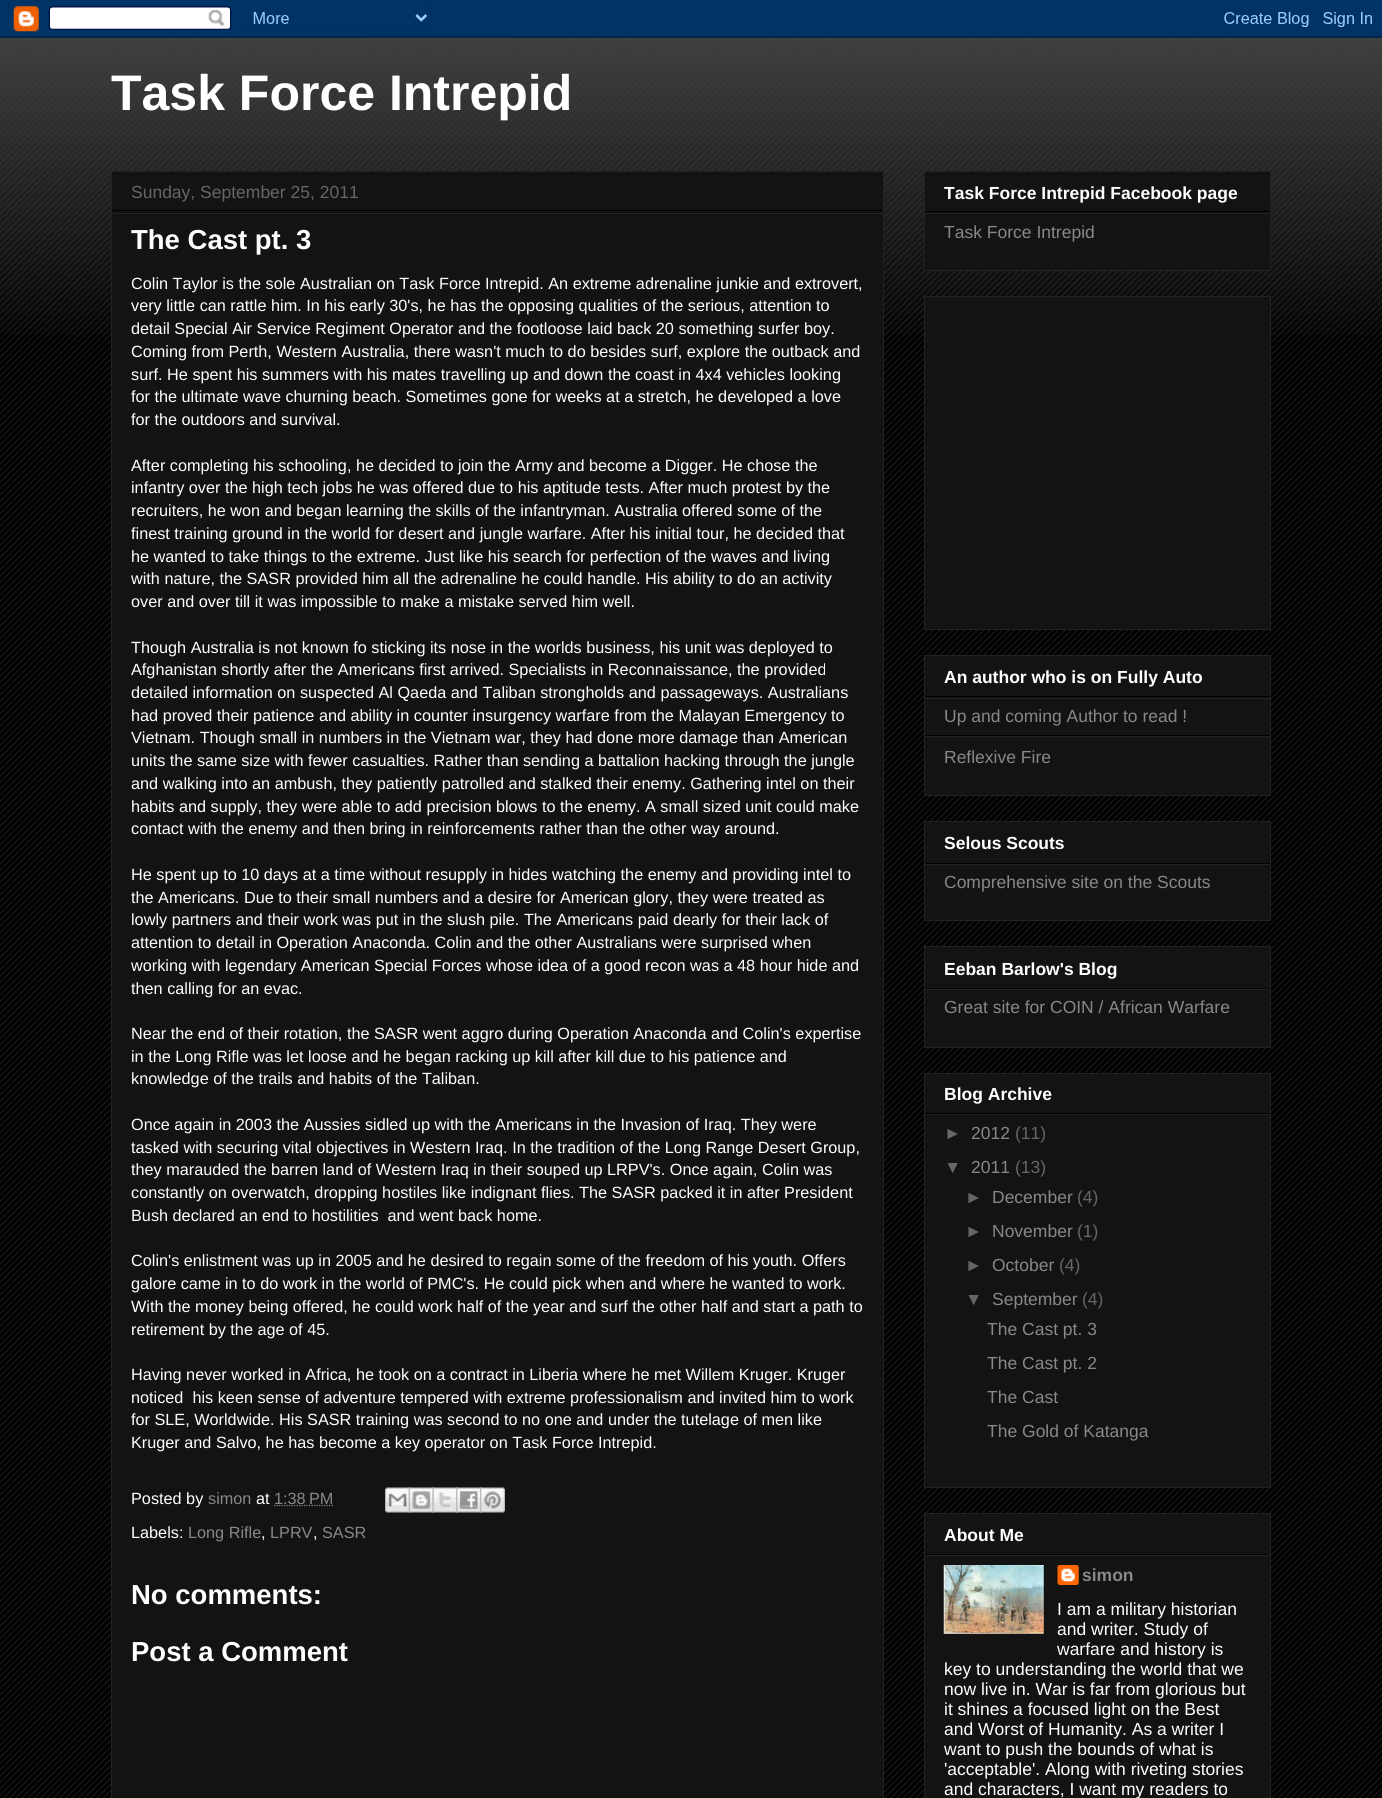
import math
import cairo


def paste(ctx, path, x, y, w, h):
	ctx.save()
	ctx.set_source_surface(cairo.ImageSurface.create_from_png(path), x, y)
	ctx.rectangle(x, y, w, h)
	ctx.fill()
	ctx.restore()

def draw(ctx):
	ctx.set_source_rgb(0, 0, 0)
	ctx.paint()
	paste(ctx, 'media/1.png', 0, 36, 1382, 1762)
	paste(ctx, 'media/3.png', 0, 36, 1382, 299)
	paste(ctx, 'media/2.png', 0, 0, 1382, 38)
	ctx.select_font_face('Liberation Sans', cairo.FONT_SLANT_NORMAL, cairo.FONT_WEIGHT_BOLD)
	ctx.set_font_size(50)
	ctx.set_source_rgb(1, 1, 1)
	ctx.move_to(111, 110)
	ctx.show_text('Task Force Intrepid')
	ctx.set_source_rgb(0.078, 0.078, 0.078)
	ctx.rectangle(111.5, 171.5, 772, 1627)
	ctx.fill_preserve()
	ctx.set_source_rgb(0.133, 0.133, 0.133)
	ctx.set_line_width(1)
	ctx.stroke()
	ctx.set_source_rgb(0, 0, 0)
	ctx.rectangle(113, 210, 770, 1)
	ctx.fill()
	ctx.select_font_face('Liberation Sans')
	ctx.set_font_size(17.5)
	ctx.set_source_rgb(0.4, 0.4, 0.4)
	ctx.move_to(131, 198)
	ctx.show_text('Sunday, September 25, 2011')
	ctx.set_source_rgb(0.133, 0.133, 0.133)
	ctx.rectangle(113, 213, 770, 1)
	ctx.fill()
	ctx.select_font_face('Liberation Sans', cairo.FONT_SLANT_NORMAL, cairo.FONT_WEIGHT_BOLD)
	ctx.set_font_size(27.5)
	ctx.set_source_rgb(1, 1, 1)
	ctx.move_to(131, 249)
	ctx.show_text('The Cast pt. 3')
	ctx.select_font_face('Liberation Sans')
	ctx.set_font_size(16.25)
	for x, y, s in [
		(131, 289, 'Colin Taylor is the sole Australian on Task Force Intrepid. An extreme adrenaline junkie and extrovert,'),
		(131, 311, 'very little can rattle him. In his early 30\'s, he has the opposing qualities of the serious, attention to'),
		(131, 334, 'detail Special Air Service Regiment Operator and the footloose laid back 20 something surfer boy.'),
		(131, 357, 'Coming from Perth, Western Australia, there wasn\'t much to do besides surf, explore the outback and'),
		(131, 380, 'surf. He spent his summers with his mates travelling up and down the coast in 4x4 vehicles looking'),
		(131, 402, 'for the ultimate wave churning beach. Sometimes gone for weeks at a stretch, he developed a love'),
		(131, 425, 'for the outdoors and survival.'),
		(131, 471, 'After completing his schooling, he decided to join the Army and become a Digger. He chose the'),
		(131, 493, 'infantry over the high tech jobs he was offered due to his aptitude tests. After much protest by the'),
		(131, 516, 'recruiters, he won and began learning the skills of the infantryman. Australia offered some of the'),
		(131, 539, 'finest training ground in the world for desert and jungle warfare. After his initial tour, he decided that'),
		(131, 562, 'he wanted to take things to the extreme. Just like his search for perfection of the waves and living'),
		(131, 584, 'with nature, the SASR provided him all the adrenaline he could handle. His ability to do an activity'),
		(131, 607, 'over and over till it was impossible to make a mistake served him well.'),
		(131, 653, 'Though Australia is not known fo sticking its nose in the worlds business, his unit was deployed to'),
		(131, 675, 'Afghanistan shortly after the Americans first arrived. Specialists in Reconnaissance, the provided'),
		(131, 698, 'detailed information on suspected Al Qaeda and Taliban strongholds and passageways. Australians'),
		(131, 721, 'had proved their patience and ability in counter insurgency warfare from the Malayan Emergency to'),
		(131, 743, 'Vietnam. Though small in numbers in the Vietnam war, they had done more damage than American'),
		(131, 766, 'units the same size with fewer casualties. Rather than sending a battalion hacking through the jungle'),
		(131, 789, 'and walking into an ambush, they patiently patrolled and stalked their enemy. Gathering intel on their'),
		(131, 812, 'habits and supply, they were able to add precision blows to the enemy. A small sized unit could make'),
		(131, 834, 'contact with the enemy and then bring in reinforcements rather than the other way around.'),
		(131, 880, 'He spent up to 10 days at a time without resupply in hides watching the enemy and providing intel to'),
		(131, 903, 'the Americans. Due to their small numbers and a desire for American glory, they were treated as'),
		(131, 925, 'lowly partners and their work was put in the slush pile. The Americans paid dearly for their lack of'),
		(131, 948, 'attention to detail in Operation Anaconda. Colin and the other Australians were surprised when'),
		(131, 971, 'working with legendary American Special Forces whose idea of a good recon was a 48 hour hide and'),
		(131, 994, 'then calling for an evac.'),
		(131, 1039, 'Near the end of their rotation, the SASR went aggro during Operation Anaconda and Colin\'s expertise'),
		(131, 1062, 'in the Long Rifle was let loose and he began racking up kill after kill due to his patience and'),
		(131, 1084, 'knowledge of the trails and habits of the Taliban.'),
		(131, 1130, 'Once again in 2003 the Aussies sidled up with the Americans in the Invasion of Iraq. They were'),
		(131, 1153, 'tasked with securing vital objectives in Western Iraq. In the tradition of the Long Range Desert Group,'),
		(131, 1175, 'they marauded the barren land of Western Iraq in their souped up LRPV\'s. Once again, Colin was'),
		(131, 1198, 'constantly on overwatch, dropping hostiles like indignant flies. The SASR packed it in after President'),
		(131, 1221, 'Bush declared an end to hostilities  and went back home.'),
		(131, 1266, 'Colin\'s enlistment was up in 2005 and he desired to regain some of the freedom of his youth. Offers'),
		(131, 1289, 'galore came in to do work in the world of PMC\'s. He could pick when and where he wanted to work.'),
		(131, 1312, 'With the money being offered, he could work half of the year and surf the other half and start a path to'),
		(131, 1335, 'retirement by the age of 45.'),
		(131, 1380, 'Having never worked in Africa, he took on a contract in Liberia where he met Willem Kruger. Kruger'),
		(131, 1403, 'noticed  his keen sense of adventure tempered with extreme professionalism and invited him to work'),
		(131, 1425, 'for SLE, Worldwide. His SASR training was second to no one and under the tutelage of men like'),
		(131, 1448, 'Kruger and Salvo, he has become a key operator on Task Force Intrepid.'),
		(131, 1504, 'Posted by'),
	]:
		ctx.move_to(x, y)
		ctx.show_text(s)
	ctx.set_source_rgb(0.533, 0.533, 0.533)
	ctx.move_to(208, 1504)
	ctx.show_text('simon')
	ctx.set_source_rgb(1, 1, 1)
	ctx.move_to(256, 1504)
	ctx.show_text('at')
	ctx.new_path()
	ctx.move_to(274, 1505.5)
	ctx.line_to(333.5, 1505.5)
	ctx.set_source_rgb(0.533, 0.533, 0.533)
	ctx.set_line_width(1.2)
	ctx.set_dash([1.25, 1.25])
	ctx.stroke()
	ctx.move_to(274, 1504)
	ctx.show_text('1:38 PM')
	paste(ctx, 'media/4.png', 385, 1487, 25, 26)
	paste(ctx, 'media/5.png', 408, 1487, 26, 26)
	paste(ctx, 'media/6.png', 432, 1487, 26, 26)
	paste(ctx, 'media/7.png', 456, 1487, 26, 26)
	paste(ctx, 'media/8.png', 480, 1487, 25, 26)
	ctx.set_source_rgb(1, 1, 1)
	ctx.move_to(131, 1538)
	ctx.show_text('Labels:')
	ctx.set_source_rgb(0.533, 0.533, 0.533)
	ctx.move_to(188, 1538)
	ctx.show_text('Long Rifle')
	ctx.set_source_rgb(1, 1, 1)
	ctx.move_to(261, 1538)
	ctx.show_text(',')
	ctx.set_source_rgb(0.533, 0.533, 0.533)
	ctx.move_to(270, 1538)
	ctx.show_text('LPRV')
	ctx.set_source_rgb(1, 1, 1)
	ctx.move_to(313, 1538)
	ctx.show_text(',')
	ctx.set_source_rgb(0.533, 0.533, 0.533)
	ctx.move_to(322, 1538)
	ctx.show_text('SASR')
	ctx.select_font_face('Liberation Sans', cairo.FONT_SLANT_NORMAL, cairo.FONT_WEIGHT_BOLD)
	ctx.set_font_size(27.5)
	ctx.set_source_rgb(1, 1, 1)
	ctx.move_to(131, 1604)
	ctx.show_text('No comments:')
	ctx.move_to(131, 1661)
	ctx.show_text('Post a Comment')
	ctx.set_source_rgb(0.078, 0.078, 0.078)
	ctx.rectangle(924.5, 171.5, 346, 99)
	ctx.fill_preserve()
	ctx.set_source_rgb(0.133, 0.133, 0.133)
	ctx.set_line_width(1)
	ctx.set_dash([])
	ctx.stroke()
	ctx.set_source_rgb(0, 0, 0)
	ctx.rectangle(925, 211, 345, 1)
	ctx.fill()
	ctx.set_font_size(17.5)
	ctx.set_source_rgb(1, 1, 1)
	ctx.move_to(944, 199)
	ctx.show_text('Task Force Intrepid Facebook page')
	ctx.set_source_rgb(0.133, 0.133, 0.133)
	ctx.rectangle(925, 213, 345, 1)
	ctx.fill()
	ctx.select_font_face('Liberation Sans')
	ctx.set_source_rgb(0.533, 0.533, 0.533)
	ctx.move_to(944, 238)
	ctx.show_text('Task Force Intrepid')
	ctx.set_source_rgb(0.078, 0.078, 0.078)
	ctx.rectangle(924.5, 296.5, 346, 333)
	ctx.fill_preserve()
	ctx.set_source_rgb(0.133, 0.133, 0.133)
	ctx.stroke()
	ctx.set_source_rgb(0.078, 0.078, 0.078)
	ctx.rectangle(924.5, 655.5, 346, 140)
	ctx.fill_preserve()
	ctx.set_source_rgb(0.133, 0.133, 0.133)
	ctx.stroke()
	ctx.set_source_rgb(0, 0, 0)
	ctx.rectangle(925, 696, 345, 1)
	ctx.fill()
	ctx.select_font_face('Liberation Sans', cairo.FONT_SLANT_NORMAL, cairo.FONT_WEIGHT_BOLD)
	ctx.set_source_rgb(1, 1, 1)
	ctx.move_to(944, 683)
	ctx.show_text('An author who is on Fully Auto')
	ctx.set_source_rgb(0.133, 0.133, 0.133)
	ctx.rectangle(925, 698, 345, 1)
	ctx.fill()
	ctx.set_source_rgb(0, 0, 0)
	ctx.rectangle(925, 735, 345, 1)
	ctx.fill()
	ctx.select_font_face('Liberation Sans')
	ctx.set_source_rgb(0.533, 0.533, 0.533)
	ctx.move_to(944, 722)
	ctx.show_text('Up and coming Author to read !')
	ctx.set_source_rgb(0.133, 0.133, 0.133)
	ctx.rectangle(925, 736, 345, 1)
	ctx.fill()
	ctx.set_source_rgb(0.533, 0.533, 0.533)
	ctx.move_to(944, 763)
	ctx.show_text('Reflexive Fire')
	ctx.set_source_rgb(0.078, 0.078, 0.078)
	ctx.rectangle(924.5, 821.5, 346, 99)
	ctx.fill_preserve()
	ctx.set_source_rgb(0.133, 0.133, 0.133)
	ctx.stroke()
	ctx.set_source_rgb(0, 0, 0)
	ctx.rectangle(925, 863, 345, 1)
	ctx.fill()
	ctx.select_font_face('Liberation Sans', cairo.FONT_SLANT_NORMAL, cairo.FONT_WEIGHT_BOLD)
	ctx.set_source_rgb(1, 1, 1)
	ctx.move_to(944, 849)
	ctx.show_text('Selous Scouts')
	ctx.set_source_rgb(0.133, 0.133, 0.133)
	ctx.rectangle(925, 864, 345, 1)
	ctx.fill()
	ctx.select_font_face('Liberation Sans')
	ctx.set_source_rgb(0.533, 0.533, 0.533)
	ctx.move_to(944, 888)
	ctx.show_text('Comprehensive site on the Scouts')
	ctx.set_source_rgb(0.078, 0.078, 0.078)
	ctx.rectangle(924.5, 946.5, 346, 101)
	ctx.fill_preserve()
	ctx.set_source_rgb(0.133, 0.133, 0.133)
	ctx.stroke()
	ctx.set_source_rgb(0, 0, 0)
	ctx.rectangle(925, 988, 345, 1)
	ctx.fill()
	ctx.select_font_face('Liberation Sans', cairo.FONT_SLANT_NORMAL, cairo.FONT_WEIGHT_BOLD)
	ctx.set_source_rgb(1, 1, 1)
	ctx.move_to(944, 975)
	ctx.show_text('Eeban Barlow\'s Blog')
	ctx.set_source_rgb(0.133, 0.133, 0.133)
	ctx.rectangle(925, 989, 345, 1)
	ctx.fill()
	ctx.select_font_face('Liberation Sans')
	ctx.set_source_rgb(0.533, 0.533, 0.533)
	ctx.move_to(944, 1013)
	ctx.show_text('Great site for COIN / African Warfare')
	ctx.set_source_rgb(0.078, 0.078, 0.078)
	ctx.rectangle(924.5, 1073.5, 346, 414)
	ctx.fill_preserve()
	ctx.set_source_rgb(0.133, 0.133, 0.133)
	ctx.stroke()
	ctx.set_source_rgb(0, 0, 0)
	ctx.rectangle(925, 1113, 345, 1)
	ctx.fill()
	ctx.select_font_face('Liberation Sans', cairo.FONT_SLANT_NORMAL, cairo.FONT_WEIGHT_BOLD)
	ctx.set_source_rgb(1, 1, 1)
	ctx.move_to(944, 1100)
	ctx.show_text('Blog Archive')
	ctx.set_source_rgb(0.133, 0.133, 0.133)
	ctx.rectangle(925, 1114, 345, 1)
	ctx.fill()
	ctx.select_font_face('Liberation Sans')
	ctx.set_source_rgb(0.4, 0.4, 0.4)
	ctx.move_to(944, 1139)
	ctx.show_text('►')
	ctx.set_source_rgb(0.533, 0.533, 0.533)
	ctx.move_to(971, 1139)
	ctx.show_text('2012')
	ctx.set_source_rgb(0.4, 0.4, 0.4)
	ctx.move_to(1015, 1139)
	ctx.show_text('(11)')
	ctx.move_to(944, 1173)
	ctx.show_text('▼')
	ctx.set_source_rgb(0.533, 0.533, 0.533)
	ctx.move_to(971, 1173)
	ctx.show_text('2011')
	ctx.set_source_rgb(0.4, 0.4, 0.4)
	ctx.move_to(1015, 1173)
	ctx.show_text('(13)')
	ctx.move_to(965, 1203)
	ctx.show_text('►')
	ctx.set_source_rgb(0.533, 0.533, 0.533)
	ctx.move_to(992, 1203)
	ctx.show_text('December')
	ctx.set_source_rgb(0.4, 0.4, 0.4)
	ctx.move_to(1077, 1203)
	ctx.show_text('(4)')
	ctx.move_to(965, 1237)
	ctx.show_text('►')
	ctx.set_source_rgb(0.533, 0.533, 0.533)
	ctx.move_to(992, 1237)
	ctx.show_text('November')
	ctx.set_source_rgb(0.4, 0.4, 0.4)
	ctx.move_to(1077, 1237)
	ctx.show_text('(1)')
	ctx.move_to(965, 1271)
	ctx.show_text('►')
	ctx.set_source_rgb(0.533, 0.533, 0.533)
	ctx.move_to(992, 1271)
	ctx.show_text('October')
	ctx.set_source_rgb(0.4, 0.4, 0.4)
	ctx.move_to(1059, 1271)
	ctx.show_text('(4)')
	ctx.move_to(965, 1305)
	ctx.show_text('▼')
	ctx.set_source_rgb(0.533, 0.533, 0.533)
	ctx.move_to(992, 1305)
	ctx.show_text('September')
	ctx.set_source_rgb(0.4, 0.4, 0.4)
	ctx.move_to(1082, 1305)
	ctx.show_text('(4)')
	ctx.set_source_rgb(0.533, 0.533, 0.533)
	for x, y, s in [
		(987, 1335, 'The Cast pt. 3'),
		(987, 1369, 'The Cast pt. 2'),
		(987, 1403, 'The Cast'),
		(987, 1437, 'The Gold of Katanga'),
	]:
		ctx.move_to(x, y)
		ctx.show_text(s)
	ctx.set_source_rgb(0.078, 0.078, 0.078)
	ctx.rectangle(924.5, 1513.5, 346, 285)
	ctx.fill_preserve()
	ctx.set_source_rgb(0.133, 0.133, 0.133)
	ctx.stroke()
	ctx.set_source_rgb(0, 0, 0)
	ctx.rectangle(925, 1554, 345, 1)
	ctx.fill()
	ctx.select_font_face('Liberation Sans', cairo.FONT_SLANT_NORMAL, cairo.FONT_WEIGHT_BOLD)
	ctx.set_source_rgb(1, 1, 1)
	ctx.move_to(944, 1541)
	ctx.show_text('About Me')
	ctx.set_source_rgb(0.133, 0.133, 0.133)
	ctx.rectangle(925, 1555, 345, 1)
	ctx.fill()
	paste(ctx, 'media/9.png', 943, 1565, 101, 69)
	paste(ctx, 'media/10.png', 1057, 1565, 22, 20)
	ctx.set_source_rgb(0.533, 0.533, 0.533)
	ctx.move_to(1082, 1581)
	ctx.show_text('simon')
	ctx.select_font_face('Liberation Sans')
	ctx.set_source_rgb(1, 1, 1)
	for x, y, s in [
		(1057, 1615, 'I am a military historian'),
		(1057, 1635, 'and writer. Study of'),
		(1057, 1655, 'warfare and history is'),
		(944, 1675, 'key to understanding the world that we'),
		(944, 1695, 'now live in. War is far from glorious but'),
		(944, 1715, 'it shines a focused light on the Best'),
		(944, 1735, 'and Worst of Humanity. As a writer I'),
		(944, 1755, 'want to push the bounds of what is'),
		(944, 1775, '\'acceptable\'. Along with riveting stories'),
		(944, 1795, 'and characters, I want my readers to'),
	]:
		ctx.move_to(x, y)
		ctx.show_text(s)


surface = cairo.ImageSurface(cairo.FORMAT_RGB24, 1382, 1798)
ctx = cairo.Context(surface)
options = cairo.FontOptions()
options.set_hint_metrics(cairo.HINT_METRICS_OFF)
options.set_hint_style(cairo.HINT_STYLE_NONE)
ctx.set_font_options(options)
ctx.set_miter_limit(4)
draw(ctx)
surface.write_to_png('image.png')
